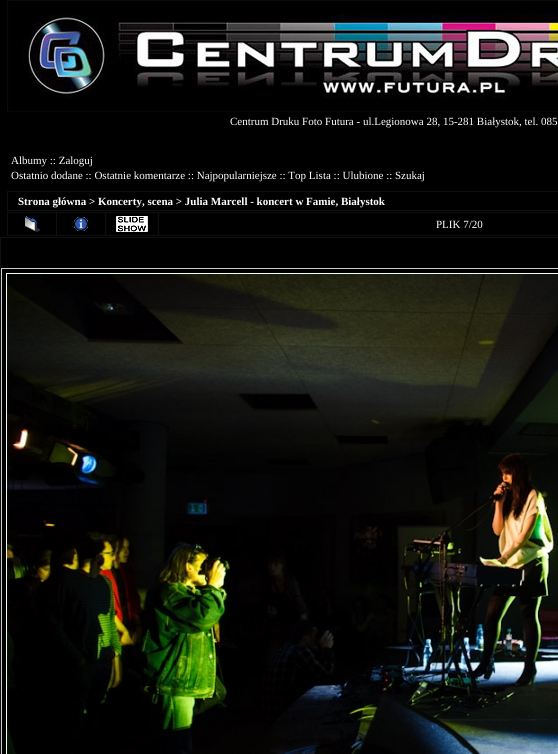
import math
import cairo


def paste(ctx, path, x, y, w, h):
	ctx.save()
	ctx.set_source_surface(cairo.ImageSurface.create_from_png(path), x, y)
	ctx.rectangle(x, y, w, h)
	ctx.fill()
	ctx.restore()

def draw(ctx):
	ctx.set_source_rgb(0, 0, 0)
	ctx.paint()
	paste(ctx, 'media/1.png', 7, 0, 551, 112)
	ctx.select_font_face('Liberation Serif')
	ctx.set_font_size(11)
	ctx.set_source_rgb(1, 1, 1)
	for x, y, s in [
		(230, 125, 'Centrum Druku Foto Futura - ul.Legionowa 28, 15-281 Białystok, tel. 085'),
		(11, 164, 'Albumy :: Zaloguj'),
		(11, 179, 'Ostatnio dodane :: Ostatnie komentarze :: Najpopularniejsze :: Top Lista :: Ulubione :: Szukaj'),
	]:
		ctx.move_to(x, y)
		ctx.show_text(s)
	ctx.set_source_rgb(0.063, 0.063, 0.063)
	ctx.rectangle(7, 191, 551, 20)
	ctx.fill()
	ctx.set_source_rgb(0, 0, 0)
	ctx.rectangle(8, 192, 550, 18)
	ctx.fill()
	ctx.select_font_face('Liberation Serif', cairo.FONT_SLANT_NORMAL, cairo.FONT_WEIGHT_BOLD)
	ctx.set_source_rgb(1, 1, 1)
	ctx.move_to(18, 205)
	ctx.show_text('Strona główna > Koncerty, scena > Julia Marcell - koncert w Famie, Białystok')
	ctx.set_source_rgb(0.063, 0.063, 0.063)
	ctx.rectangle(7, 212, 551, 24)
	ctx.fill()
	ctx.set_source_rgb(0, 0, 0)
	ctx.rectangle(8, 213, 48, 22)
	ctx.fill()
	paste(ctx, 'media/2.png', 25, 216, 15, 16)
	ctx.rectangle(57, 213, 48, 22)
	ctx.fill()
	paste(ctx, 'media/3.png', 74, 217, 14, 14)
	ctx.rectangle(106, 213, 52, 22)
	ctx.fill()
	paste(ctx, 'media/4.png', 116, 216, 32, 16)
	ctx.rectangle(159, 213, 399, 22)
	ctx.fill()
	ctx.select_font_face('Liberation Serif')
	ctx.set_source_rgb(1, 1, 1)
	ctx.move_to(436, 228)
	ctx.show_text('PLIK 7/20')
	ctx.set_source_rgb(0.063, 0.063, 0.063)
	ctx.rectangle(0, 237, 558, 517)
	ctx.fill()
	ctx.set_source_rgb(0, 0, 0)
	ctx.rectangle(1, 238, 557, 516)
	ctx.fill()
	ctx.rectangle(1.5, 268.5, 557, 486)
	ctx.set_source_rgb(0.8, 0.8, 0.8)
	ctx.set_line_width(1)
	ctx.stroke()
	ctx.rectangle(6.5, 273.5, 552, 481)
	ctx.set_source_rgb(0.941, 1, 0.941)
	ctx.stroke()
	paste(ctx, 'media/5.png', 7, 274, 551, 480)


surface = cairo.ImageSurface(cairo.FORMAT_RGB24, 558, 754)
ctx = cairo.Context(surface)
options = cairo.FontOptions()
options.set_hint_metrics(cairo.HINT_METRICS_OFF)
options.set_hint_style(cairo.HINT_STYLE_NONE)
ctx.set_font_options(options)
ctx.set_miter_limit(4)
draw(ctx)
surface.write_to_png('image.png')
